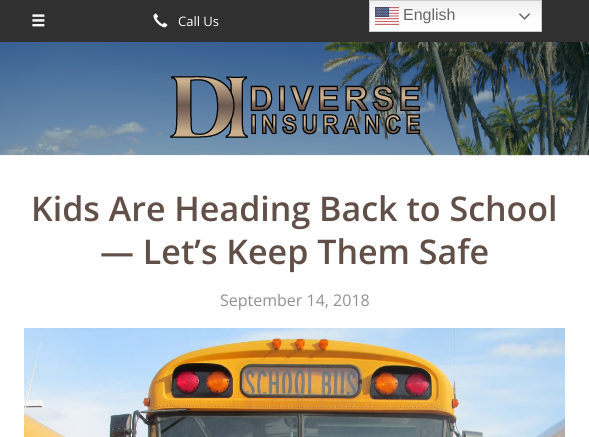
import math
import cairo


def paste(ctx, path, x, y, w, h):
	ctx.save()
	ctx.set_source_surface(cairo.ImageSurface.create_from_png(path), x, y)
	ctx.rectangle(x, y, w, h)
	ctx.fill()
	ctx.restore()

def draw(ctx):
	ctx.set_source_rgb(1, 1, 1)
	ctx.paint()
	ctx.set_source_rgb(0.188, 0.188, 0.188)
	ctx.rectangle(0, 0, 589, 42)
	ctx.fill()
	gradient = cairo.LinearGradient(456, 0, 456, 32)
	gradient.add_color_stop_rgba(0, 0.937, 0.937, 0.937, 1)
	gradient.add_color_stop_rgba(0.7, 1, 1, 1, 1)
	ctx.set_source(gradient)
	ctx.rectangle(370, 1, 171, 30)
	ctx.fill()
	ctx.rectangle(369.5, 0.5, 172, 31)
	ctx.set_source_rgb(0.8, 0.8, 0.8)
	ctx.set_line_width(1)
	ctx.stroke()
	paste(ctx, 'media/1.png', 375, 7, 24, 18)
	ctx.select_font_face('Liberation Sans')
	ctx.set_font_size(16)
	ctx.set_source_rgb(0.4, 0.4, 0.4)
	ctx.move_to(403, 20)
	ctx.show_text('English')
	paste(ctx, 'media/2.png', 519, 13, 11, 7)
	paste(ctx, 'media/3.png', 32, 14, 13, 13)
	paste(ctx, 'media/4.png', 153, 13, 15, 15)
	ctx.select_font_face('Open Sans')
	ctx.set_font_size(13)
	ctx.set_source_rgb(1, 1, 1)
	ctx.move_to(178, 26)
	ctx.show_text('Call Us')
	paste(ctx, 'media/5.png', 0, 42, 589, 114)
	ctx.set_source_rgba(0.035, 0.212, 0.173, 0.35)
	ctx.rectangle(0, 42, 589, 113)
	ctx.fill()
	paste(ctx, 'media/6.png', 170, 76, 250, 62)
	ctx.select_font_face('Open Sans SemiBold')
	ctx.set_font_size(34)
	ctx.set_source_rgb(0.38, 0.314, 0.282)
	ctx.move_to(31, 221)
	ctx.show_text('Kids Are Heading Back to School')
	ctx.move_to(100, 264)
	ctx.show_text('— Let’s Keep Them Safe')
	ctx.select_font_face('Open Sans')
	ctx.set_font_size(16)
	ctx.set_source_rgb(0.565, 0.565, 0.565)
	ctx.move_to(220, 306)
	ctx.show_text('September 14, 2018')
	paste(ctx, 'media/7.png', 24, 328, 541, 109)


surface = cairo.ImageSurface(cairo.FORMAT_RGB24, 589, 437)
ctx = cairo.Context(surface)
options = cairo.FontOptions()
options.set_hint_metrics(cairo.HINT_METRICS_OFF)
options.set_hint_style(cairo.HINT_STYLE_NONE)
ctx.set_font_options(options)
ctx.set_miter_limit(4)
draw(ctx)
surface.write_to_png('image.png')
